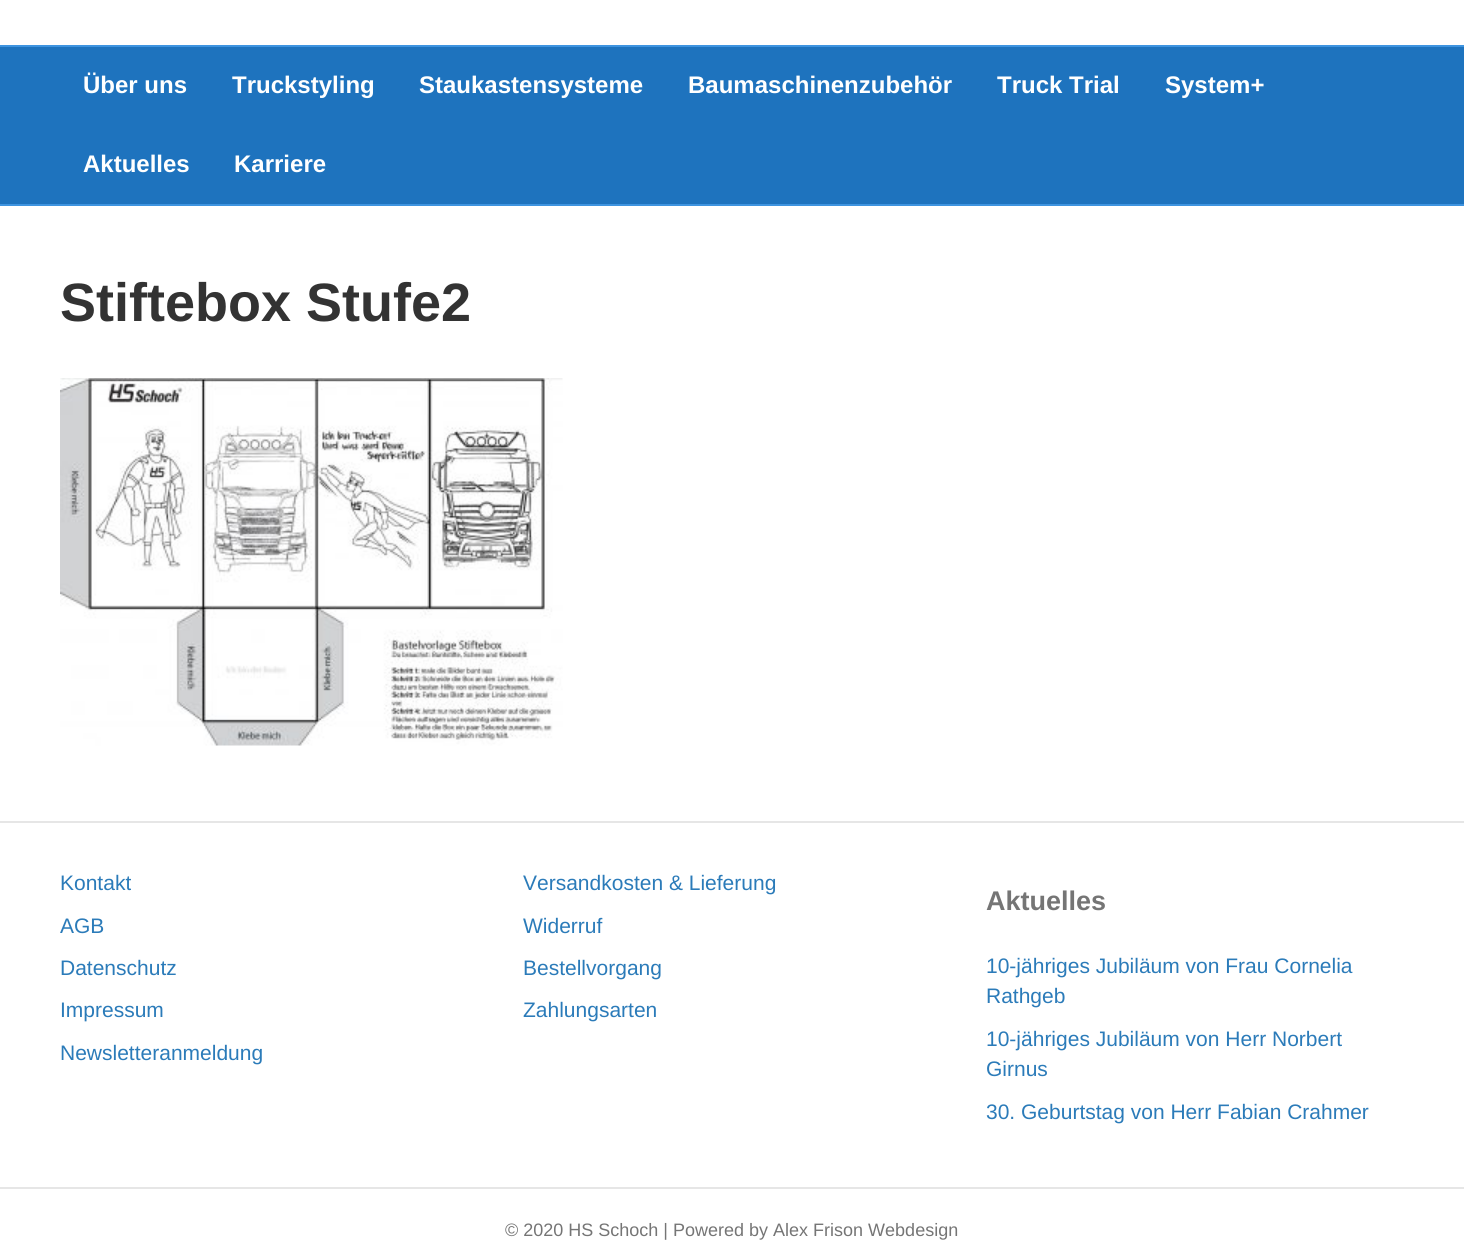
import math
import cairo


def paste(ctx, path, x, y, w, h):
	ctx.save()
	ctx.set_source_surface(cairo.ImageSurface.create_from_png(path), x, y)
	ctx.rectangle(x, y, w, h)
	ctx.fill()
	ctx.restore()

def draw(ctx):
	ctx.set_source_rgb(1, 1, 1)
	ctx.paint()
	ctx.set_source_rgb(0.118, 0.451, 0.745)
	ctx.rectangle(0, 47, 1464, 157)
	ctx.fill()
	ctx.set_source_rgb(0.243, 0.58, 0.878)
	ctx.rectangle(0, 45, 1464, 2)
	ctx.rectangle(0, 204, 1464, 2)
	ctx.fill()
	ctx.select_font_face('Liberation Sans', cairo.FONT_SLANT_NORMAL, cairo.FONT_WEIGHT_BOLD)
	ctx.set_font_size(24)
	ctx.set_source_rgb(1, 1, 1)
	for x, y, s in [
		(83, 93, 'Über uns'),
		(232, 93, 'Truckstyling'),
		(419, 93, 'Staukastensysteme'),
		(688, 93, 'Baumaschinenzubehör'),
		(997, 93, 'Truck Trial'),
		(1165, 93, 'System+'),
		(83, 172, 'Aktuelles'),
		(234, 172, 'Karriere'),
	]:
		ctx.move_to(x, y)
		ctx.show_text(s)
	ctx.set_font_size(54)
	ctx.set_source_rgb(0.2, 0.2, 0.2)
	ctx.move_to(60, 321)
	ctx.show_text('Stiftebox Stufe2')
	paste(ctx, 'media/1.png', 60, 378, 503, 368)
	ctx.set_source_rgb(0.902, 0.902, 0.902)
	ctx.rectangle(0, 821, 1464, 2)
	ctx.fill()
	ctx.select_font_face('Liberation Sans')
	ctx.set_font_size(21)
	ctx.set_source_rgb(0.169, 0.482, 0.725)
	for x, y, s in [
		(60, 890, 'Kontakt'),
		(60, 933, 'AGB'),
		(60, 975, 'Datenschutz'),
		(60, 1017, 'Impressum'),
		(60, 1060, 'Newsletteranmeldung'),
		(523, 890, 'Versandkosten & Lieferung'),
		(523, 933, 'Widerruf'),
		(523, 975, 'Bestellvorgang'),
		(523, 1017, 'Zahlungsarten'),
	]:
		ctx.move_to(x, y)
		ctx.show_text(s)
	ctx.select_font_face('Liberation Sans', cairo.FONT_SLANT_NORMAL, cairo.FONT_WEIGHT_BOLD)
	ctx.set_font_size(27)
	ctx.set_source_rgb(0.459, 0.459, 0.459)
	ctx.move_to(986, 910)
	ctx.show_text('Aktuelles')
	ctx.select_font_face('Liberation Sans')
	ctx.set_font_size(21)
	ctx.set_source_rgb(0.169, 0.482, 0.725)
	for x, y, s in [
		(986, 973, '10-jähriges Jubiläum von Frau Cornelia'),
		(986, 1003, 'Rathgeb'),
		(986, 1046, '10-jähriges Jubiläum von Herr Norbert'),
		(986, 1076, 'Girnus'),
		(986, 1119, '30. Geburtstag von Herr Fabian Crahmer'),
	]:
		ctx.move_to(x, y)
		ctx.show_text(s)
	ctx.set_source_rgb(0.902, 0.902, 0.902)
	ctx.rectangle(0, 1187, 1464, 2)
	ctx.fill()
	ctx.set_font_size(18)
	ctx.set_source_rgb(0.459, 0.459, 0.459)
	ctx.move_to(505, 1236)
	ctx.show_text('© 2020 HS Schoch | Powered by Alex Frison Webdesign')


surface = cairo.ImageSurface(cairo.FORMAT_RGB24, 1464, 1250)
ctx = cairo.Context(surface)
options = cairo.FontOptions()
options.set_hint_metrics(cairo.HINT_METRICS_OFF)
options.set_hint_style(cairo.HINT_STYLE_NONE)
ctx.set_font_options(options)
ctx.set_miter_limit(4)
draw(ctx)
surface.write_to_png('image.png')
